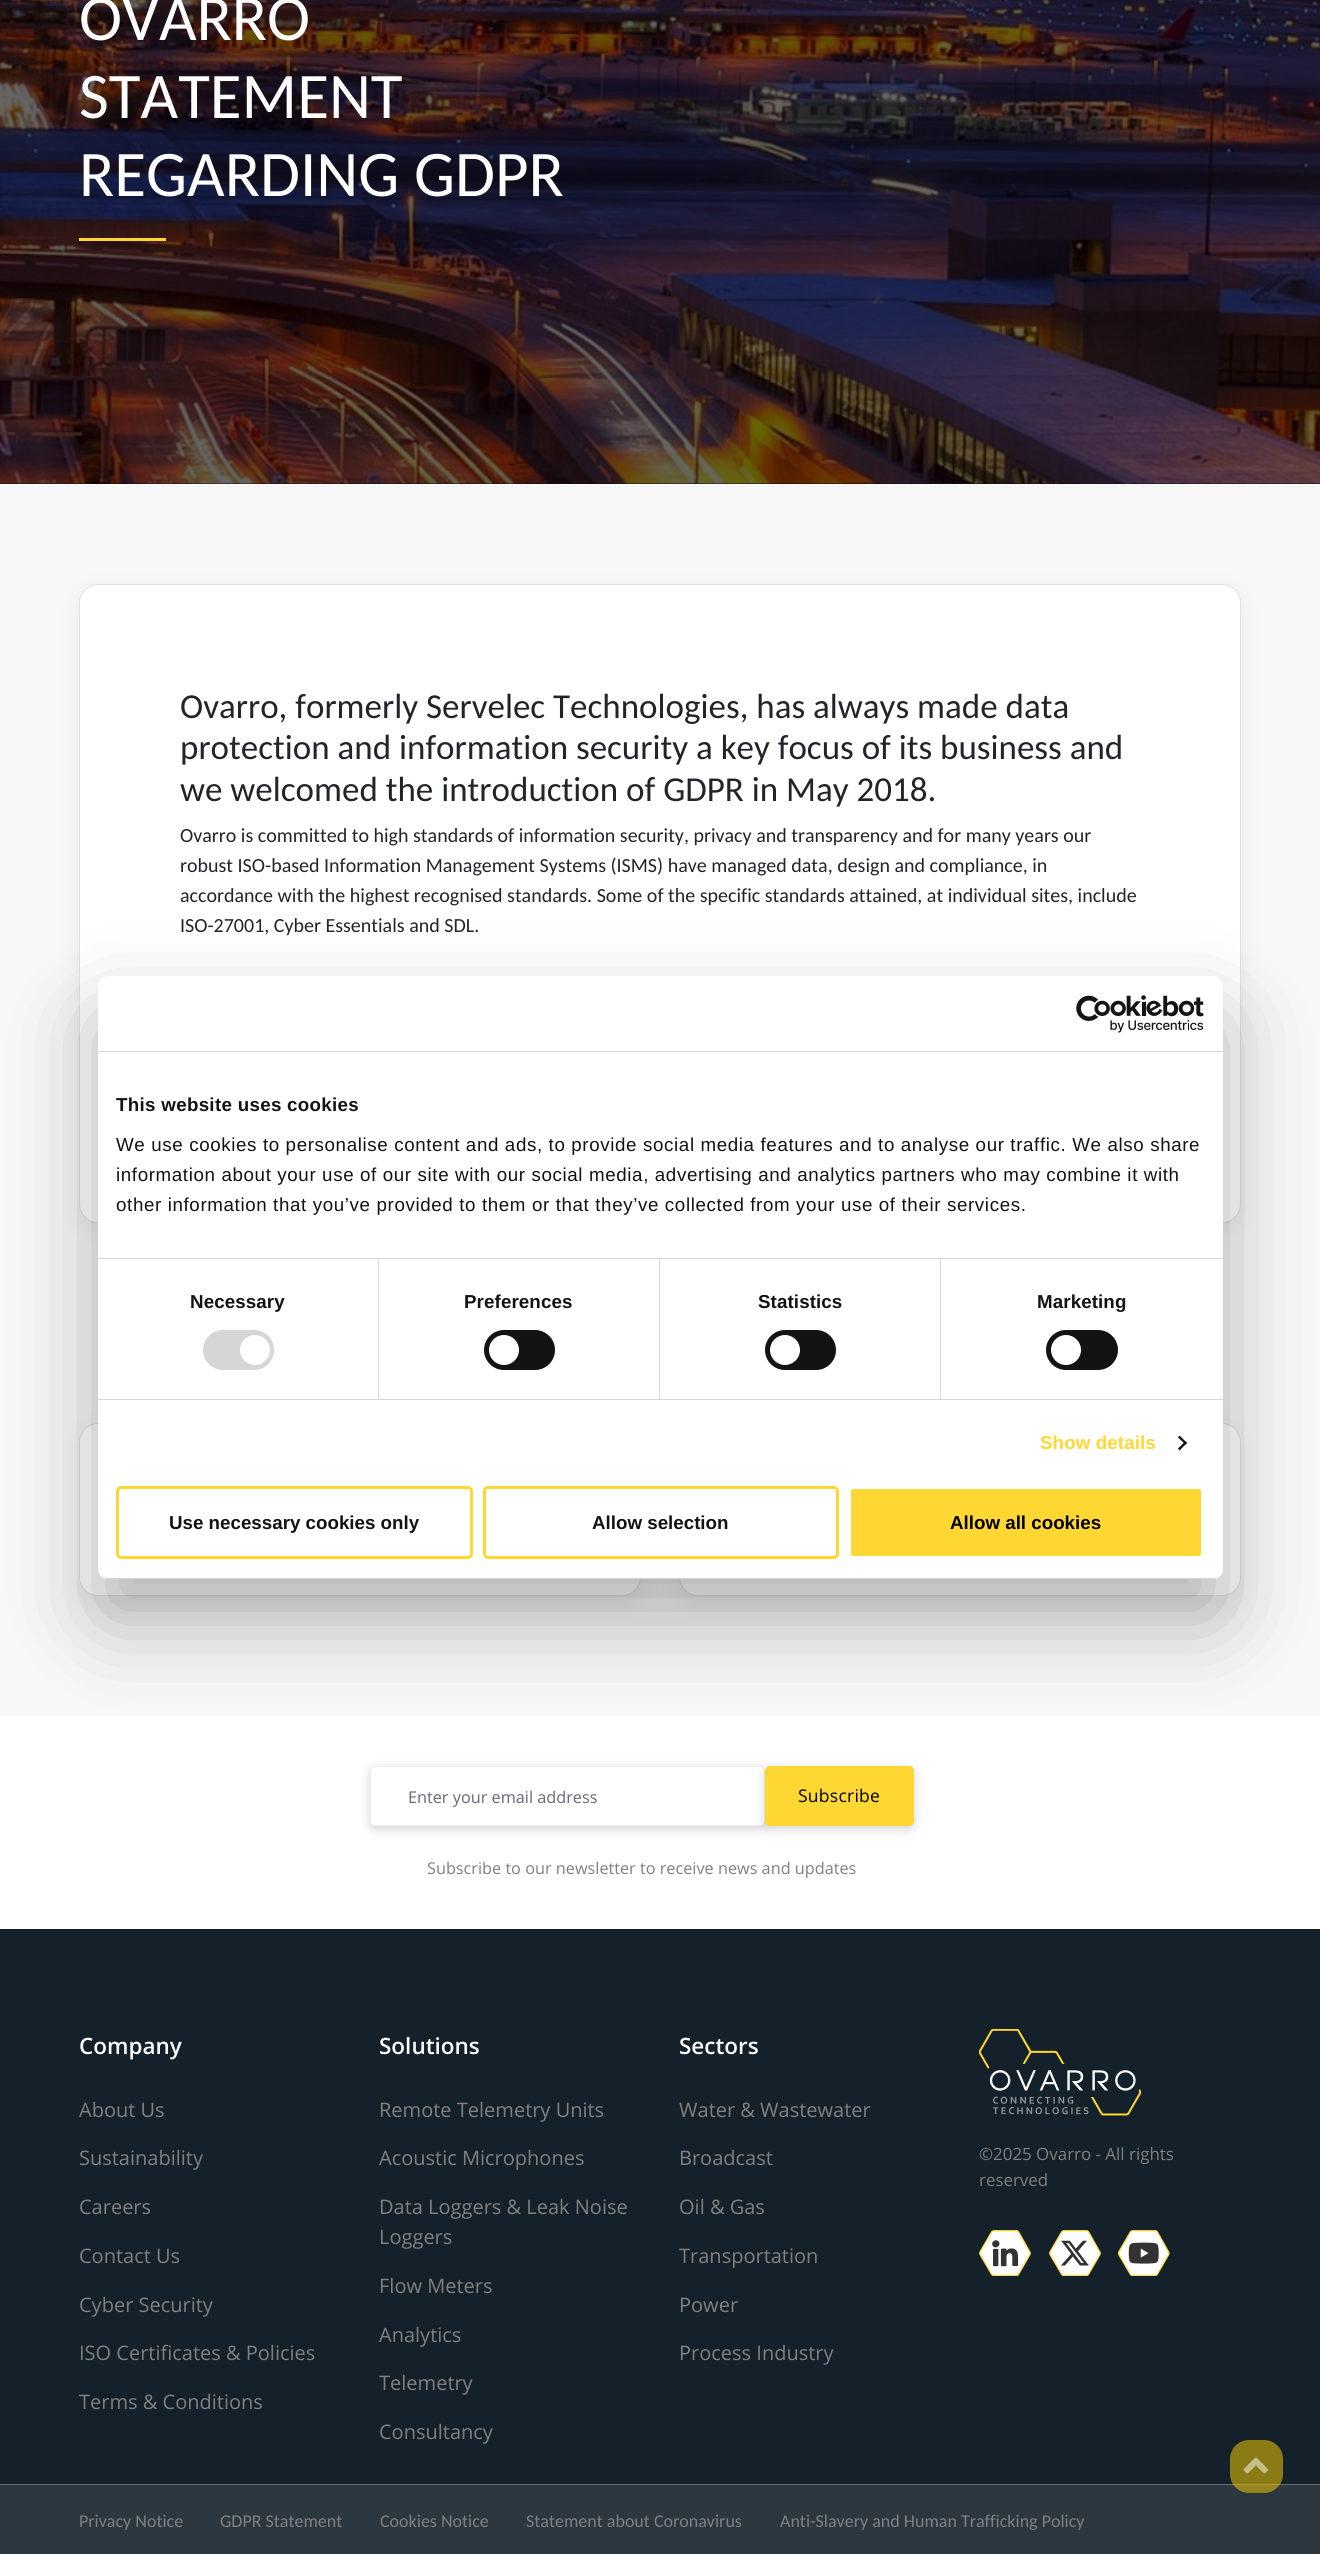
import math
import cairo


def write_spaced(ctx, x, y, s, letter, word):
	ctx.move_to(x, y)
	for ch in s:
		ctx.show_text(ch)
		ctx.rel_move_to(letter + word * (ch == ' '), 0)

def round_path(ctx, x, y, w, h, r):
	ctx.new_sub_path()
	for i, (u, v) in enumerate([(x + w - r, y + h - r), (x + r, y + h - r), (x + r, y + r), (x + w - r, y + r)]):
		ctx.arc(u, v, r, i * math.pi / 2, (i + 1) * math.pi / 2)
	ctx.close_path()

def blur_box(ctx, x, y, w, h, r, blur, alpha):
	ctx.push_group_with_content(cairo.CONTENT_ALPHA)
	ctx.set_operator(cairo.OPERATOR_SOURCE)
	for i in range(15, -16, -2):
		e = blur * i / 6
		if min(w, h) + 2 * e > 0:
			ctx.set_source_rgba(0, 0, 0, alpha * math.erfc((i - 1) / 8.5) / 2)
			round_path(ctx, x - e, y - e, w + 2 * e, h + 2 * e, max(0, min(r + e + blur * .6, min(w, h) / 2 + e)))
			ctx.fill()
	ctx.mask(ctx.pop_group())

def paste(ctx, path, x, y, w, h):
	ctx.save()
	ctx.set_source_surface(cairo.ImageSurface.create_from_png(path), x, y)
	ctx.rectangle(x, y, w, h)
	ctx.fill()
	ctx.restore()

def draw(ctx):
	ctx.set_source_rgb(0.965, 0.965, 0.965)
	ctx.paint()
	ctx.set_source_rgb(0.078, 0.078, 0.078)
	ctx.rectangle(0, 483, 1320, 1)
	ctx.fill()
	paste(ctx, 'media/1.png', 0, 0, 1320, 484)
	ctx.select_font_face('Carlito')
	ctx.set_font_size(65)
	ctx.set_source_rgb(1, 1, 1)
	for x, y, s in [
		(79, 40, 'OVARRO'),
		(79, 118, 'STATEMENT'),
		(79, 196, 'REGARDING GDPR'),
	]:
		ctx.move_to(x, y)
		ctx.show_text(s)
	ctx.set_source_rgb(1, 0.843, 0.196)
	ctx.rectangle(79, 238, 87, 3)
	ctx.fill()
	ctx.set_source_rgb(0.431, 0.431, 0.431)
	blur_box(ctx, 79, 590, 1162, 639, 19, 9.5, 0.1)
	ctx.set_source_rgb(1, 1, 1)
	round_path(ctx, 79.5, 584.5, 1161, 638, 18.5)
	ctx.fill_preserve()
	ctx.set_source_rgb(0.871, 0.886, 0.902)
	ctx.set_line_width(1)
	ctx.stroke()
	ctx.set_font_size(35)
	ctx.set_source_rgb(0.129, 0.145, 0.161)
	for x, y, s in [
		(180, 718, 'Ovarro, formerly Servelec Technologies, has always made data'),
		(180, 759, 'protection and information security a key focus of its business and'),
		(180, 801, 'we welcomed the introduction of GDPR in May 2018.'),
	]:
		ctx.move_to(x, y)
		ctx.show_text(s)
	ctx.set_font_size(20)
	for x, y, s in [
		(180, 842, 'Ovarro is committed to high standards of information security, privacy and transparency and for many years our'),
		(180, 872, 'robust ISO-based Information Management Systems (ISMS) have managed data, design and compliance, in'),
		(180, 902, 'accordance with the highest recognised standards. Some of the specific standards attained, at individual sites, include'),
		(180, 932, 'ISO-27001, Cyber Essentials and SDL.'),
	]:
		ctx.move_to(x, y)
		ctx.show_text(s)
	ctx.set_source_rgb(0.431, 0.431, 0.431)
	blur_box(ctx, 79, 1429, 562, 174, 19, 9.5, 0.1)
	ctx.set_source_rgb(1, 1, 1)
	round_path(ctx, 79.5, 1423.5, 561, 172, 18.5)
	ctx.fill_preserve()
	ctx.set_source_rgb(0.871, 0.886, 0.902)
	ctx.stroke()
	ctx.set_source_rgb(0.431, 0.431, 0.431)
	blur_box(ctx, 679, 1429, 562, 174, 19, 9.5, 0.1)
	ctx.set_source_rgb(1, 1, 1)
	round_path(ctx, 679.5, 1423.5, 561, 172, 18.5)
	ctx.fill_preserve()
	ctx.set_source_rgb(0.871, 0.886, 0.902)
	ctx.stroke()
	ctx.set_source_rgb(1, 1, 1)
	ctx.rectangle(0, 1716, 1320, 213)
	ctx.fill()
	ctx.set_source_rgb(0.243, 0.243, 0.31)
	blur_box(ctx, 370, 1769, 395, 60, 5, 5, 0.23)
	ctx.set_source_rgb(1, 1, 1)
	round_path(ctx, 370.5, 1766.5, 394, 59, 4.5)
	ctx.fill_preserve()
	ctx.set_source_rgb(0.937, 0.937, 0.937)
	ctx.stroke()
	ctx.select_font_face('Open Sans')
	ctx.set_font_size(16.25)
	ctx.set_source_rgb(0.404, 0.408, 0.482)
	ctx.move_to(408, 1803)
	ctx.show_text('Enter your email address')
	ctx.set_source_rgb(0.243, 0.243, 0.31)
	blur_box(ctx, 765, 1769, 149, 60, 5, 5, 0.23)
	ctx.set_source_rgb(1, 0.843, 0.196)
	round_path(ctx, 765, 1766, 149, 60, 5)
	ctx.fill()
	ctx.set_font_size(17.5)
	ctx.set_source_rgb(0, 0, 0)
	write_spaced(ctx, 798, 1802, 'Subscribe', 0.25, 0)
	ctx.set_font_size(16.25)
	ctx.set_source_rgb(0.502, 0.502, 0.502)
	ctx.move_to(427, 1874)
	ctx.show_text('Subscribe to our newsletter to receive news and updates')
	ctx.set_source_rgb(0.082, 0.129, 0.165)
	ctx.rectangle(0, 1929, 1320, 555)
	ctx.fill()
	ctx.select_font_face('Open Sans SemiBold')
	ctx.set_font_size(22.5)
	ctx.set_source_rgb(1, 1, 1)
	ctx.move_to(79, 2054)
	ctx.show_text('Company')
	ctx.select_font_face('Open Sans')
	ctx.set_font_size(20)
	ctx.set_source_rgb(0.502, 0.502, 0.502)
	for x, y, s in [
		(79, 2117, 'About Us'),
		(79, 2165, 'Sustainability'),
		(79, 2214, 'Careers'),
		(79, 2263, 'Contact Us'),
		(79, 2312, 'Cyber Security'),
		(79, 2360, 'ISO Certificates & Policies'),
		(79, 2409, 'Terms & Conditions'),
	]:
		ctx.move_to(x, y)
		ctx.show_text(s)
	ctx.select_font_face('Open Sans SemiBold')
	ctx.set_font_size(22.5)
	ctx.set_source_rgb(1, 1, 1)
	ctx.move_to(379, 2054)
	ctx.show_text('Solutions')
	ctx.select_font_face('Open Sans')
	ctx.set_font_size(20)
	ctx.set_source_rgb(0.502, 0.502, 0.502)
	for x, y, s in [
		(379, 2117, 'Remote Telemetry Units'),
		(379, 2165, 'Acoustic Microphones'),
		(379, 2214, 'Data Loggers & Leak Noise'),
		(379, 2244, 'Loggers'),
		(379, 2293, 'Flow Meters'),
		(379, 2342, 'Analytics'),
		(379, 2390, 'Telemetry'),
		(379, 2439, 'Consultancy'),
	]:
		ctx.move_to(x, y)
		ctx.show_text(s)
	ctx.select_font_face('Open Sans SemiBold')
	ctx.set_font_size(22.5)
	ctx.set_source_rgb(1, 1, 1)
	ctx.move_to(679, 2054)
	ctx.show_text('Sectors')
	ctx.select_font_face('Open Sans')
	ctx.set_font_size(20)
	ctx.set_source_rgb(0.502, 0.502, 0.502)
	for x, y, s in [
		(679, 2117, 'Water & Wastewater'),
		(679, 2165, 'Broadcast'),
		(679, 2214, 'Oil & Gas'),
		(679, 2263, 'Transportation'),
		(679, 2312, 'Power'),
		(679, 2360, 'Process Industry'),
	]:
		ctx.move_to(x, y)
		ctx.show_text(s)
	paste(ctx, 'media/2.png', 979, 2029, 162, 87)
	ctx.set_font_size(16.9)
	ctx.move_to(979, 2160)
	ctx.show_text('©2025 Ovarro - All rights')
	ctx.move_to(979, 2186)
	ctx.show_text('reserved')
	paste(ctx, 'media/3.png', 979, 2230, 52, 46)
	paste(ctx, 'media/4.png', 1049, 2230, 52, 46)
	paste(ctx, 'media/5.png', 1118, 2230, 52, 46)
	ctx.set_source_rgb(0.173, 0.216, 0.247)
	ctx.rectangle(0, 2485, 1320, 69)
	ctx.fill()
	ctx.set_source_rgb(0.404, 0.412, 0.42)
	ctx.rectangle(0, 2484, 1320, 1)
	ctx.fill()
	ctx.select_font_face('Carlito')
	ctx.set_font_size(18)
	ctx.set_source_rgb(0.502, 0.502, 0.502)
	for x, y, s in [
		(79, 2527, 'Privacy Notice'),
		(220, 2527, 'GDPR Statement'),
		(380, 2527, 'Cookies Notice'),
		(526, 2527, 'Statement about Coronavirus'),
		(780, 2527, 'Anti-Slavery and Human Trafficking Policy'),
	]:
		ctx.move_to(x, y)
		ctx.show_text(s)
	ctx.set_source_rgba(1, 0.843, 0, 0.5)
	round_path(ctx, 1230, 2440, 53, 53, 19)
	ctx.fill()
	paste(ctx, 'media/6.png', 1243, 2457, 25, 17)
	ctx.set_source_rgb(0, 0, 0)
	blur_box(ctx, 98, 1016, 1125, 603, 10, 42.5, 0.3)
	ctx.set_source_rgb(1, 1, 1)
	round_path(ctx, 98, 976, 1125, 603, 10)
	ctx.fill()
	ctx.set_source_rgb(0.839, 0.839, 0.839)
	ctx.rectangle(98, 1051, 1125, 1)
	ctx.fill()
	paste(ctx, 'media/7.png', 1076, 995, 128, 38)
	ctx.rectangle(98, 1258, 1125, 1)
	ctx.fill()
	ctx.select_font_face('Liberation Sans', cairo.FONT_SLANT_NORMAL, cairo.FONT_WEIGHT_BOLD)
	ctx.set_font_size(18.75)
	ctx.set_source_rgb(0.078, 0.078, 0.078)
	write_spaced(ctx, 116, 1111, 'This website uses cookies', 0.3, 0)
	ctx.select_font_face('Liberation Sans')
	for x, y, s in [
		(116, 1151, 'We use cookies to personalise content and ads, to provide social media features and to analyse our traffic. We also share'),
		(116, 1181, 'information about your use of our site with our social media, advertising and analytics partners who may combine it with'),
		(116, 1211, 'other information that you’ve provided to them or that they’ve collected from your use of their services.'),
	]:
		write_spaced(ctx, x, y, s, 0.62, 0)
	ctx.set_source_rgb(0.839, 0.839, 0.839)
	ctx.rectangle(98, 1399, 1125, 1)
	ctx.fill()
	ctx.rectangle(378, 1259, 1, 140)
	ctx.fill()
	ctx.select_font_face('Liberation Sans', cairo.FONT_SLANT_NORMAL, cairo.FONT_WEIGHT_BOLD)
	ctx.set_source_rgb(0.078, 0.078, 0.078)
	write_spaced(ctx, 190, 1308, 'Necessary', 0.1, 0)
	ctx.set_source_rgb(0.839, 0.839, 0.839)
	round_path(ctx, 203, 1330, 71, 40, 20)
	ctx.fill()
	ctx.set_source_rgb(1, 1, 1)
	ctx.arc(255, 1350, 15, 0, 2 * math.pi)
	ctx.fill()
	ctx.set_source_rgb(0.839, 0.839, 0.839)
	ctx.rectangle(659, 1259, 1, 140)
	ctx.fill()
	ctx.set_source_rgb(0.078, 0.078, 0.078)
	write_spaced(ctx, 464, 1308, 'Preferences', 0.1, 0)
	round_path(ctx, 484, 1330, 71, 40, 20)
	ctx.fill()
	ctx.set_source_rgb(1, 1, 1)
	ctx.arc(504, 1350, 15, 0, 2 * math.pi)
	ctx.fill()
	ctx.set_source_rgb(0.839, 0.839, 0.839)
	ctx.rectangle(940, 1259, 1, 140)
	ctx.fill()
	ctx.set_source_rgb(0.078, 0.078, 0.078)
	write_spaced(ctx, 758, 1308, 'Statistics', 0.1, 0)
	round_path(ctx, 765, 1330, 71, 40, 20)
	ctx.fill()
	ctx.set_source_rgb(1, 1, 1)
	ctx.arc(785, 1350, 15, 0, 2 * math.pi)
	ctx.fill()
	ctx.set_source_rgb(0.078, 0.078, 0.078)
	write_spaced(ctx, 1037, 1308, 'Marketing', 0.1, 0)
	round_path(ctx, 1046, 1330, 72, 40, 20)
	ctx.fill()
	ctx.set_source_rgb(1, 1, 1)
	ctx.arc(1066, 1350, 15, 0, 2 * math.pi)
	ctx.fill()
	ctx.set_source_rgb(1, 0.843, 0.196)
	write_spaced(ctx, 1040, 1449, 'Show details', 0.1, 0)
	ctx.set_source_rgb(0.078, 0.078, 0.078)
	ctx.new_path()
	ctx.move_to(1179.5, 1435.5)
	ctx.line_to(1187, 1443)
	ctx.line_to(1185.5, 1444.5)
	ctx.line_to(1178, 1437.5)
	ctx.close_path()
	ctx.fill()
	ctx.new_path()
	ctx.move_to(1185.5, 1441)
	ctx.line_to(1187, 1443)
	ctx.line_to(1179.5, 1450.5)
	ctx.line_to(1178, 1448.5)
	ctx.close_path()
	ctx.fill()
	ctx.save()
	round_path(ctx, 98, 976, 1125, 603, 10)
	ctx.clip()
	ctx.set_source_rgb(0.839, 0.839, 0.839)
	ctx.rectangle(98, 1578, 1125, 1)
	ctx.fill()
	ctx.restore()
	round_path(ctx, 117.5, 1487.5, 354, 70, 3.5)
	ctx.set_source_rgb(1, 0.843, 0.196)
	ctx.set_line_width(3)
	ctx.stroke()
	ctx.set_source_rgb(0.078, 0.078, 0.078)
	ctx.move_to(169, 1529)
	ctx.show_text('Use necessary cookies only')
	round_path(ctx, 484.5, 1487.5, 353, 70, 3.5)
	ctx.set_source_rgb(1, 0.843, 0.196)
	ctx.stroke()
	ctx.set_source_rgb(0.078, 0.078, 0.078)
	ctx.move_to(592, 1529)
	ctx.show_text('Allow selection')
	ctx.set_source_rgb(1, 0.843, 0.196)
	round_path(ctx, 849.5, 1487.5, 353, 70, 3.5)
	ctx.fill_preserve()
	ctx.set_source_rgb(1, 1, 1)
	ctx.stroke()
	ctx.set_source_rgb(0, 0, 0)
	ctx.move_to(950, 1529)
	ctx.show_text('Allow all cookies')


surface = cairo.ImageSurface(cairo.FORMAT_RGB24, 1320, 2554)
ctx = cairo.Context(surface)
options = cairo.FontOptions()
options.set_hint_metrics(cairo.HINT_METRICS_OFF)
options.set_hint_style(cairo.HINT_STYLE_NONE)
ctx.set_font_options(options)
ctx.set_miter_limit(4)
draw(ctx)
surface.write_to_png('image.png')
